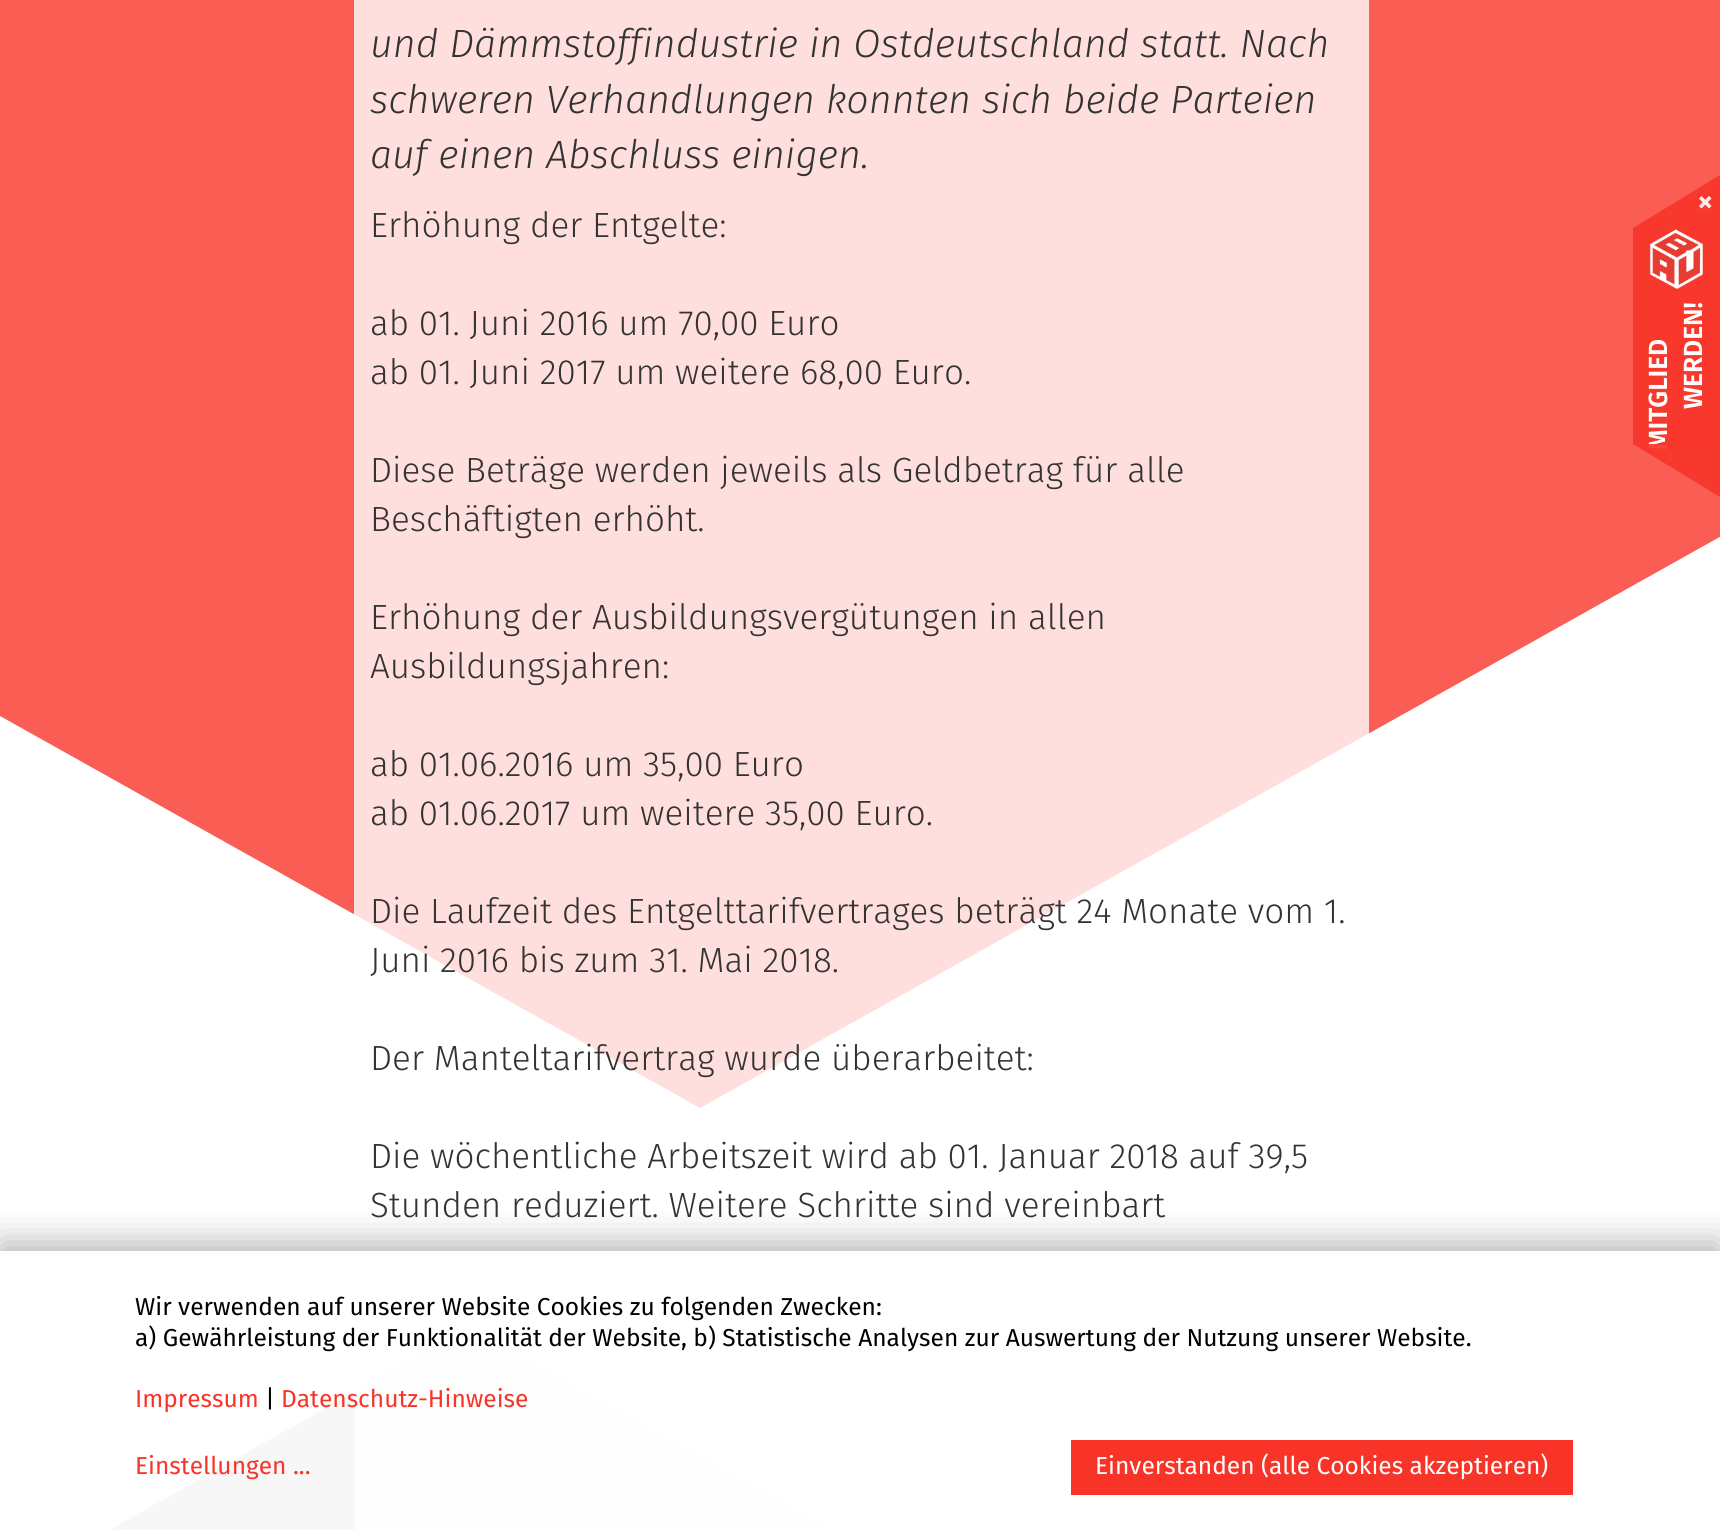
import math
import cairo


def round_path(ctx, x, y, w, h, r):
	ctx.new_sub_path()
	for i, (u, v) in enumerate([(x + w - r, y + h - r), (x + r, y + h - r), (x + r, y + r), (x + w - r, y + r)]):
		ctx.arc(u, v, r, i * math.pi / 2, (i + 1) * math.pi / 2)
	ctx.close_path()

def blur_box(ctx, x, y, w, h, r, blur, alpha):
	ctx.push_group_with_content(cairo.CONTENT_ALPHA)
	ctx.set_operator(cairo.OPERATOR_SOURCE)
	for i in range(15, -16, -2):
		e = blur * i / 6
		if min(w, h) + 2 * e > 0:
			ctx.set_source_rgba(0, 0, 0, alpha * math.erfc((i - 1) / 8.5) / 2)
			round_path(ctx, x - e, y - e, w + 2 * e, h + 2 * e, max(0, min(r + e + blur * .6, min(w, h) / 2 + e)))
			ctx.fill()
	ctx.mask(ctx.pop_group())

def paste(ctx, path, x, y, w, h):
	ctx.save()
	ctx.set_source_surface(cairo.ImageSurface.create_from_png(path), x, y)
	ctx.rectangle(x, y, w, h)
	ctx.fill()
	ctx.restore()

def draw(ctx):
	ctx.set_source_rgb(1, 1, 1)
	ctx.paint()
	ctx.set_source_rgb(0.976, 0.365, 0.329)
	ctx.set_fill_rule(cairo.FILL_RULE_EVEN_ODD)
	ctx.new_path()
	ctx.move_to(-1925, -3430)
	ctx.line_to(700, -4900)
	ctx.line_to(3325, -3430)
	ctx.line_to(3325, -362)
	ctx.line_to(700, 1108)
	ctx.line_to(-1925, -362)
	ctx.close_path()
	ctx.fill()
	ctx.set_source_rgb(0.996, 0.875, 0.867)
	ctx.rectangle(354, 0, 1015, 200)
	ctx.fill()
	ctx.select_font_face('Fira Sans Light', cairo.FONT_SLANT_ITALIC)
	ctx.set_font_size(39.4)
	ctx.set_source_rgb(0.2, 0.2, 0.2)
	for x, y, s in [
		(370, 57, 'und Dämmstoffindustrie in Ostdeutschland statt. Nach'),
		(370, 113, 'schweren Verhandlungen konnten sich beide Parteien'),
		(370, 168, 'auf einen Abschluss einigen.'),
	]:
		ctx.move_to(x, y)
		ctx.show_text(s)
	paste(ctx, 'media/2.png', 108, 1327, 726, 203)
	ctx.set_source_rgba(1, 1, 1, 0.8)
	ctx.rectangle(354, 200, 1015, 1330)
	ctx.fill()
	ctx.select_font_face('Fira Sans Light')
	ctx.set_font_size(35)
	ctx.set_source_rgb(0.2, 0.2, 0.2)
	for x, y, s in [
		(370, 237, 'Erhöhung der Entgelte:'),
		(370, 335, 'ab 01. Juni 2016 um 70,00 Euro'),
		(370, 384, 'ab 01. Juni 2017 um weitere 68,00 Euro.'),
		(370, 482, 'Diese Beträge werden jeweils als Geldbetrag für alle'),
		(370, 531, 'Beschäftigten erhöht.'),
		(370, 629, 'Erhöhung der Ausbildungsvergütungen in allen'),
		(370, 678, 'Ausbildungsjahren:'),
		(370, 776, 'ab 01.06.2016 um 35,00 Euro'),
		(370, 825, 'ab 01.06.2017 um weitere 35,00 Euro.'),
		(370, 923, 'Die Laufzeit des Entgelttarifvertrages beträgt 24 Monate vom 1.'),
		(370, 972, 'Juni 2016 bis zum 31. Mai 2018.'),
		(370, 1070, 'Der Manteltarifvertrag wurde überarbeitet:'),
		(370, 1168, 'Die wöchentliche Arbeitszeit wird ab 01. Januar 2018 auf 39,5'),
		(370, 1217, 'Stunden reduziert. Weitere Schritte sind vereinbart'),
	]:
		ctx.move_to(x, y)
		ctx.show_text(s)
	ctx.set_source_rgb(0.969, 0.22, 0.176)
	ctx.set_fill_rule(cairo.FILL_RULE_WINDING)
	ctx.new_path()
	ctx.move_to(1720, 228)
	ctx.line_to(1633, 228)
	ctx.line_to(1720, 175)
	ctx.close_path()
	ctx.fill()
	ctx.select_font_face('Fira Sans SemiBold')
	ctx.set_font_size(32)
	ctx.set_source_rgb(0.996, 0.937, 0.933)
	ctx.move_to(1697, 212)
	ctx.show_text('×')
	ctx.set_source_rgb(0.969, 0.22, 0.176)
	ctx.rectangle(1633, 228, 87, 217)
	ctx.fill()
	paste(ctx, 'media/1.png', 1650, 229, 53, 60)
	ctx.set_font_size(26.25)
	ctx.set_source_rgb(1, 1, 1)
	ctx.save()
	ctx.translate(1667, 450)
	ctx.rotate(-90 * math.pi / 180)
	ctx.move_to(0, 0)
	ctx.show_text('MITGLIED')
	ctx.restore()
	ctx.save()
	ctx.translate(1702, 409)
	ctx.rotate(-90 * math.pi / 180)
	ctx.move_to(0, 0)
	ctx.show_text('WERDEN!')
	ctx.restore()
	ctx.set_source_rgba(0.969, 0.204, 0.161, 0.9)
	ctx.new_path()
	ctx.move_to(1720, 444)
	ctx.line_to(1720, 497)
	ctx.line_to(1633, 444)
	ctx.close_path()
	ctx.fill()
	ctx.save()
	ctx.set_fill_rule(cairo.FILL_RULE_EVEN_ODD)
	ctx.new_path()
	ctx.move_to(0, 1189)
	ctx.line_to(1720, 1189)
	ctx.line_to(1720, 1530)
	ctx.line_to(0, 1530)
	ctx.close_path()
	ctx.move_to(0, 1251)
	ctx.line_to(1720, 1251)
	ctx.line_to(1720, 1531)
	ctx.line_to(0, 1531)
	ctx.close_path()
	ctx.clip()
	ctx.set_source_rgb(0, 0, 0)
	blur_box(ctx, 0, 1243, 1720, 280, 0, 17.5, 0.3)
	ctx.restore()
	ctx.set_source_rgba(1, 1, 1, 0.9)
	ctx.rectangle(0, 1251, 1720, 279)
	ctx.fill()
	ctx.select_font_face('Fira Sans')
	ctx.set_font_size(24.5)
	ctx.set_source_rgb(0, 0, 0)
	ctx.move_to(135, 1315)
	ctx.show_text('Wir verwenden auf unserer Website Cookies zu folgenden Zwecken:')
	ctx.move_to(135, 1346)
	ctx.show_text('a) Gewährleistung der Funktionalität der Website, b) Statistische Analysen zur Auswertung der Nutzung unserer Website.')
	ctx.set_source_rgb(0.969, 0.204, 0.161)
	ctx.move_to(135, 1407)
	ctx.show_text('Impressum')
	ctx.set_source_rgb(0, 0, 0)
	ctx.move_to(265, 1407)
	ctx.show_text('|')
	ctx.set_source_rgb(0.969, 0.204, 0.161)
	ctx.move_to(281, 1407)
	ctx.show_text('Datenschutz-Hinweise')
	ctx.move_to(135, 1474)
	ctx.show_text('Einstellungen ...')
	ctx.rectangle(1071, 1440, 502, 55)
	ctx.fill()
	ctx.set_source_rgb(1, 1, 1)
	ctx.move_to(1095, 1474)
	ctx.show_text('Einverstanden (alle Cookies akzeptieren)')


surface = cairo.ImageSurface(cairo.FORMAT_RGB24, 1720, 1530)
ctx = cairo.Context(surface)
options = cairo.FontOptions()
options.set_hint_metrics(cairo.HINT_METRICS_OFF)
options.set_hint_style(cairo.HINT_STYLE_NONE)
ctx.set_font_options(options)
ctx.set_miter_limit(4)
draw(ctx)
surface.write_to_png('image.png')
